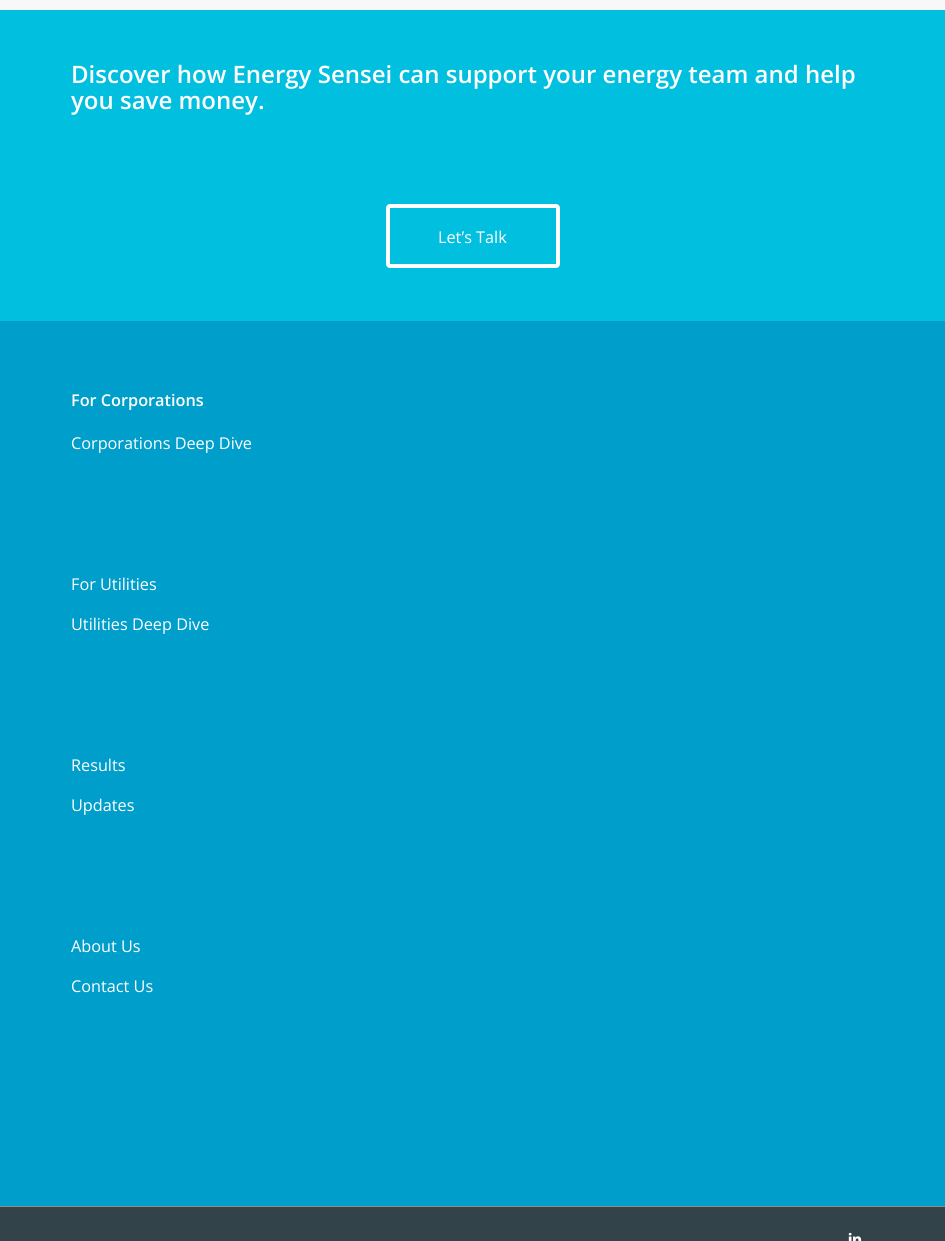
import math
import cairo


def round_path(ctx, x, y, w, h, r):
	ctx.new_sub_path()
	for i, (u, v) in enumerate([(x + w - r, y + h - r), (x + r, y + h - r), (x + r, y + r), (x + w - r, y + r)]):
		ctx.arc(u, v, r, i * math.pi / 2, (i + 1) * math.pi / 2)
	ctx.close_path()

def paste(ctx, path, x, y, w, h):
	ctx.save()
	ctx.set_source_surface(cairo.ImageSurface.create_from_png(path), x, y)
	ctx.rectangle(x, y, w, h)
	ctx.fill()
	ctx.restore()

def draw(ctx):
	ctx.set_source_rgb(0.969, 0.969, 0.969)
	ctx.paint()
	ctx.set_source_rgb(0, 0.749, 0.875)
	ctx.rectangle(0, 10, 945, 311)
	ctx.fill()
	ctx.select_font_face('Open Sans SemiBold')
	ctx.set_font_size(24)
	ctx.set_source_rgb(1, 1, 1)
	ctx.move_to(71, 83)
	ctx.show_text('Discover how Energy Sensei can support your energy team and help')
	ctx.move_to(71, 109)
	ctx.show_text('you save money.')
	round_path(ctx, 388, 206, 170, 60, 2)
	ctx.set_line_width(4)
	ctx.stroke()
	ctx.select_font_face('Open Sans')
	ctx.set_font_size(16.25)
	ctx.move_to(438, 243)
	ctx.show_text('Let’s Talk')
	ctx.set_source_rgb(0, 0.62, 0.792)
	ctx.rectangle(0, 321, 945, 885)
	ctx.fill()
	ctx.select_font_face('Open Sans SemiBold')
	ctx.set_source_rgb(1, 1, 1)
	ctx.move_to(71, 406)
	ctx.show_text('For Corporations')
	ctx.select_font_face('Open Sans')
	for x, y, s in [
		(71, 449, 'Corporations Deep Dive'),
		(71, 590, 'For Utilities'),
		(71, 630, 'Utilities Deep Dive'),
		(71, 771, 'Results'),
		(71, 811, 'Updates'),
		(71, 952, 'About Us'),
		(71, 992, 'Contact Us'),
	]:
		ctx.move_to(x, y)
		ctx.show_text(s)
	ctx.set_source_rgb(0.196, 0.263, 0.286)
	ctx.rectangle(0, 1207, 945, 34)
	ctx.fill()
	ctx.set_source_rgb(0.549, 0.545, 0.537)
	ctx.rectangle(0, 1206, 945, 1)
	ctx.fill()
	paste(ctx, 'media/1.png', 848, 1232, 14, 9)


surface = cairo.ImageSurface(cairo.FORMAT_RGB24, 945, 1241)
ctx = cairo.Context(surface)
options = cairo.FontOptions()
options.set_hint_metrics(cairo.HINT_METRICS_OFF)
options.set_hint_style(cairo.HINT_STYLE_NONE)
ctx.set_font_options(options)
ctx.set_miter_limit(4)
draw(ctx)
surface.write_to_png('image.png')
